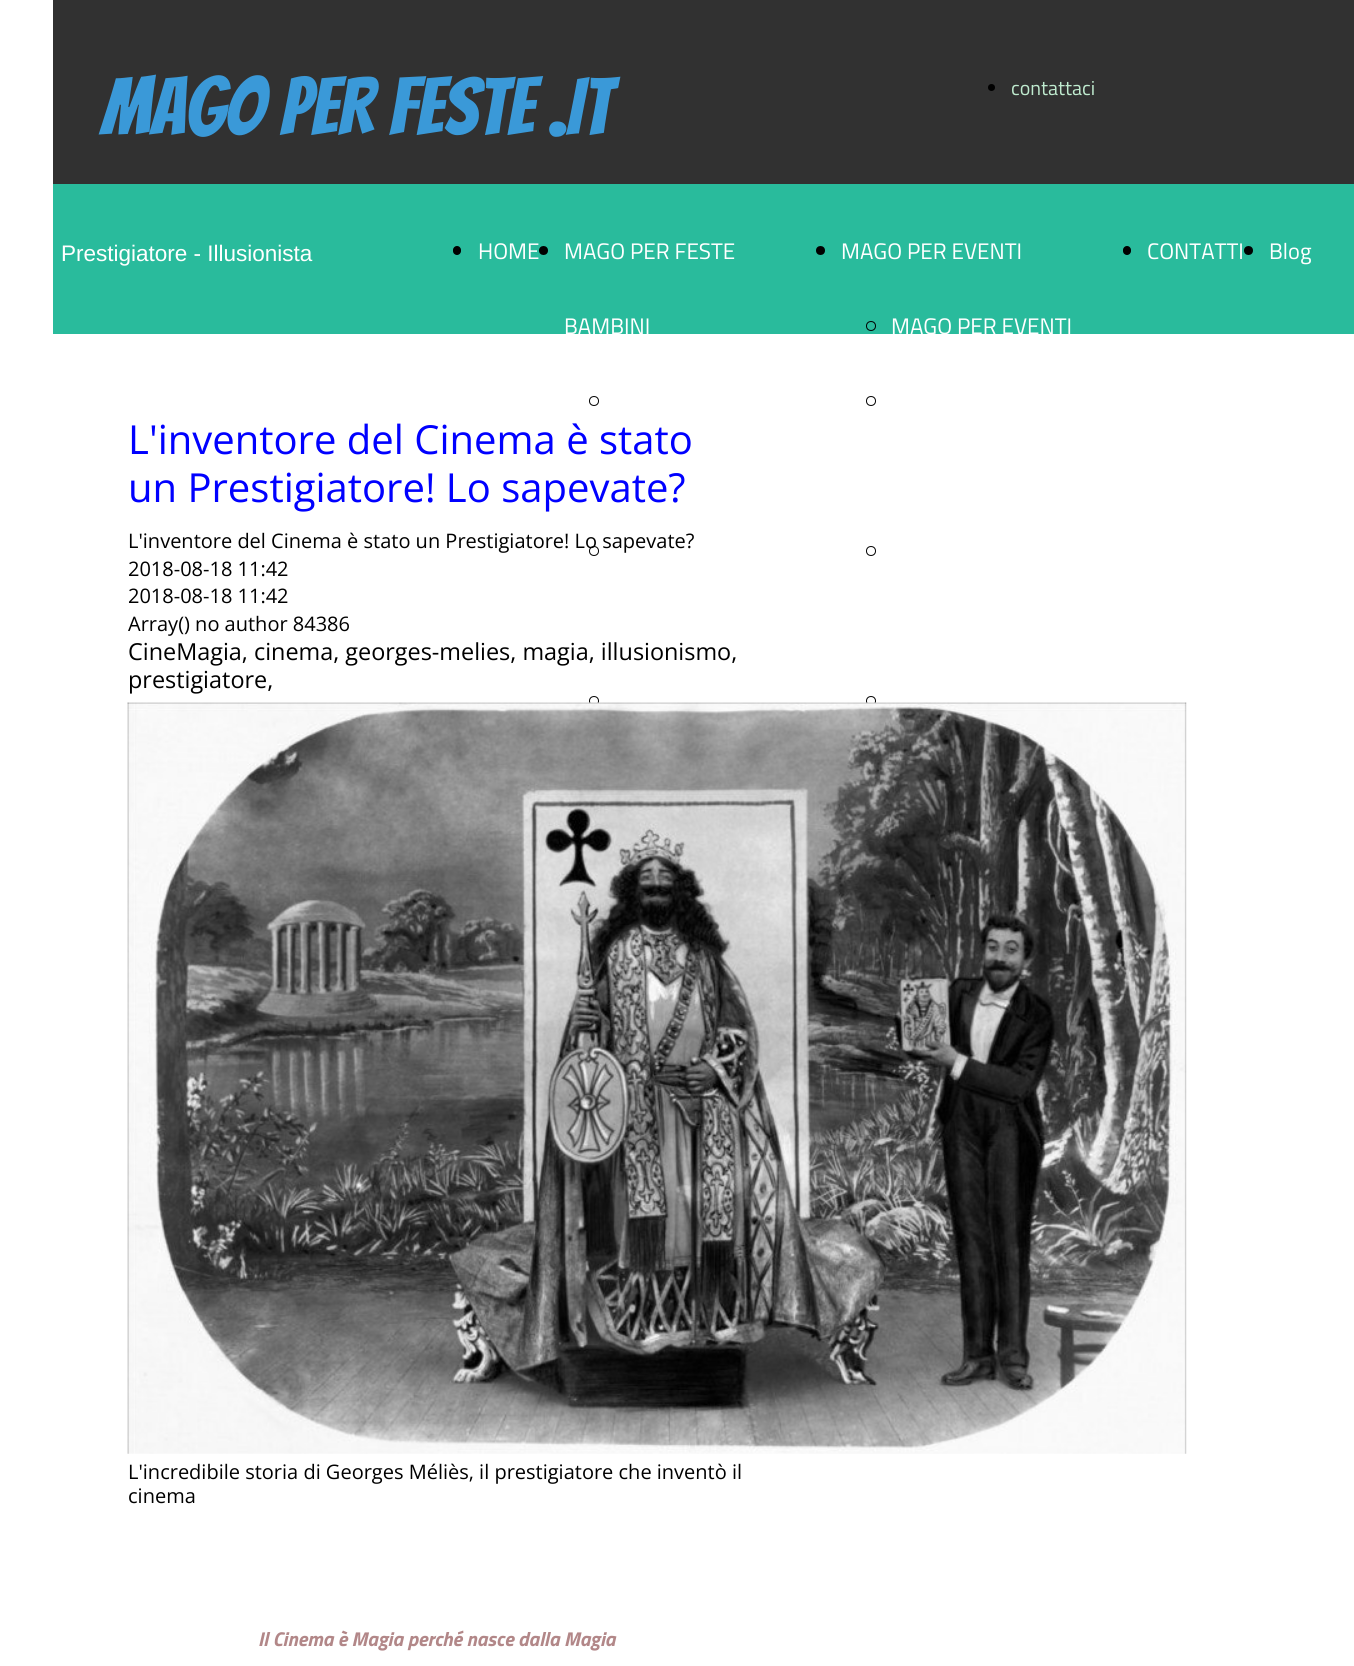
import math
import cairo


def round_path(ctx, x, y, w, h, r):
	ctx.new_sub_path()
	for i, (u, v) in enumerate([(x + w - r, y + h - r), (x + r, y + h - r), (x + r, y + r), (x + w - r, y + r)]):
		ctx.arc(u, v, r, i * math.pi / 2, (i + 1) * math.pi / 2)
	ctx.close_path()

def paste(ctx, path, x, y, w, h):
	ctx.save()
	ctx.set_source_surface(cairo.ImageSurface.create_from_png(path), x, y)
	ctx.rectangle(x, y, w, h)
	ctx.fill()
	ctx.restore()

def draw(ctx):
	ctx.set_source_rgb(1, 1, 1)
	ctx.paint()
	ctx.set_source_rgb(0.192, 0.192, 0.192)
	ctx.rectangle(53, 0, 1301, 184)
	ctx.fill()
	ctx.select_font_face('Bangers')
	ctx.set_font_size(80)
	ctx.set_source_rgb(0.227, 0.6, 0.847)
	ctx.move_to(101, 135)
	ctx.show_text('MAGO PER FESTE .IT')
	ctx.set_source_rgb(0, 0, 0)
	ctx.new_path()
	ctx.arc(991.5, 87.5, 3.5, 0, 2 * math.pi)
	ctx.fill()
	ctx.select_font_face('Titillium Web')
	ctx.set_font_size(20)
	ctx.set_source_rgb(0.749, 0.918, 0.812)
	ctx.move_to(1011, 95)
	ctx.show_text('contattaci')
	ctx.set_source_rgb(0.161, 0.733, 0.612)
	ctx.rectangle(53, 184, 1301, 150)
	ctx.fill()
	ctx.select_font_face('Arimo')
	ctx.set_font_size(22.5)
	ctx.set_source_rgb(1, 1, 1)
	ctx.move_to(61, 261)
	ctx.show_text('Prestigiatore - Illusionista')
	ctx.set_source_rgb(0, 0, 0)
	round_path(ctx, 453, 246, 8, 9, 4)
	ctx.fill()
	ctx.select_font_face('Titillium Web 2')
	ctx.set_source_rgb(1, 1, 1)
	ctx.move_to(478, 259)
	ctx.show_text('HOME')
	ctx.set_source_rgb(0, 0, 0)
	ctx.new_path()
	ctx.arc(543.5, 250.5, 4.5, 0, 2 * math.pi)
	ctx.fill()
	ctx.set_source_rgb(1, 1, 1)
	ctx.move_to(564, 259)
	ctx.show_text('MAGO PER FESTE')
	ctx.move_to(564, 334)
	ctx.show_text('BAMBINI')
	ctx.new_path()
	ctx.arc(594, 401, 4.5, 0, 2 * math.pi)
	ctx.set_source_rgb(0, 0, 0)
	ctx.set_line_width(1)
	ctx.stroke()
	ctx.arc(594, 551, 4.5, 0, 2 * math.pi)
	ctx.stroke()
	ctx.arc(594, 701, 4.5, 0, 2 * math.pi)
	ctx.stroke()
	ctx.arc(820.5, 250.5, 4.5, 0, 2 * math.pi)
	ctx.fill()
	ctx.set_source_rgb(1, 1, 1)
	ctx.move_to(841, 259)
	ctx.show_text('MAGO PER EVENTI')
	ctx.new_path()
	ctx.arc(871, 326, 4.5, 0, 2 * math.pi)
	ctx.set_source_rgb(0, 0, 0)
	ctx.stroke()
	ctx.set_source_rgb(1, 1, 1)
	ctx.move_to(891, 334)
	ctx.show_text('MAGO PER EVENTI')
	ctx.new_path()
	ctx.arc(871, 401, 4.5, 0, 2 * math.pi)
	ctx.set_source_rgb(0, 0, 0)
	ctx.stroke()
	ctx.arc(871, 551, 4.5, 0, 2 * math.pi)
	ctx.stroke()
	ctx.arc(871, 701, 4.5, 0, 2 * math.pi)
	ctx.stroke()
	round_path(ctx, 1123, 246, 8, 9, 4)
	ctx.fill()
	ctx.set_source_rgb(1, 1, 1)
	ctx.move_to(1147, 259)
	ctx.show_text('CONTATTI')
	ctx.set_source_rgb(0, 0, 0)
	ctx.new_path()
	ctx.arc(1248.5, 250.5, 4.5, 0, 2 * math.pi)
	ctx.fill()
	ctx.set_source_rgb(1, 1, 1)
	ctx.move_to(1269, 259)
	ctx.show_text('Blog')
	ctx.select_font_face('Open Sans')
	ctx.set_font_size(40)
	ctx.set_source_rgb(0, 0, 1)
	ctx.move_to(128, 454)
	ctx.show_text('L\'inventore del Cinema è stato')
	ctx.move_to(128, 502)
	ctx.show_text('un Prestigiatore! Lo sapevate?')
	ctx.set_font_size(20)
	ctx.set_source_rgb(0, 0, 0)
	for x, y, s in [
		(128, 548, 'L\'inventore del Cinema è stato un Prestigiatore! Lo sapevate?'),
		(128, 576, '2018-08-18 11:42'),
		(128, 603, '2018-08-18 11:42'),
		(128, 631, 'Array() no author 84386'),
	]:
		ctx.move_to(x, y)
		ctx.show_text(s)
	ctx.set_font_size(23.4)
	ctx.move_to(128, 660)
	ctx.show_text('CineMagia, cinema, georges-melies, magia, illusionismo,')
	ctx.move_to(128, 688)
	ctx.show_text('prestigiatore,')
	paste(ctx, 'media/1.png', 127, 702, 1060, 752)
	ctx.set_font_size(20)
	ctx.move_to(128, 1479)
	ctx.show_text('L\'incredibile storia di Georges Méliès, il prestigiatore che inventò il')
	ctx.move_to(128, 1503)
	ctx.show_text('cinema')
	ctx.select_font_face('Titillium Web', cairo.FONT_SLANT_ITALIC, cairo.FONT_WEIGHT_BOLD)
	ctx.set_source_rgb(0.698, 0.529, 0.533)
	ctx.move_to(258, 1646)
	ctx.show_text('Il Cinema è Magia perché nasce dalla Magia')


surface = cairo.ImageSurface(cairo.FORMAT_RGB24, 1354, 1666)
ctx = cairo.Context(surface)
options = cairo.FontOptions()
options.set_hint_metrics(cairo.HINT_METRICS_OFF)
options.set_hint_style(cairo.HINT_STYLE_NONE)
ctx.set_font_options(options)
ctx.set_miter_limit(4)
draw(ctx)
surface.write_to_png('image.png')
